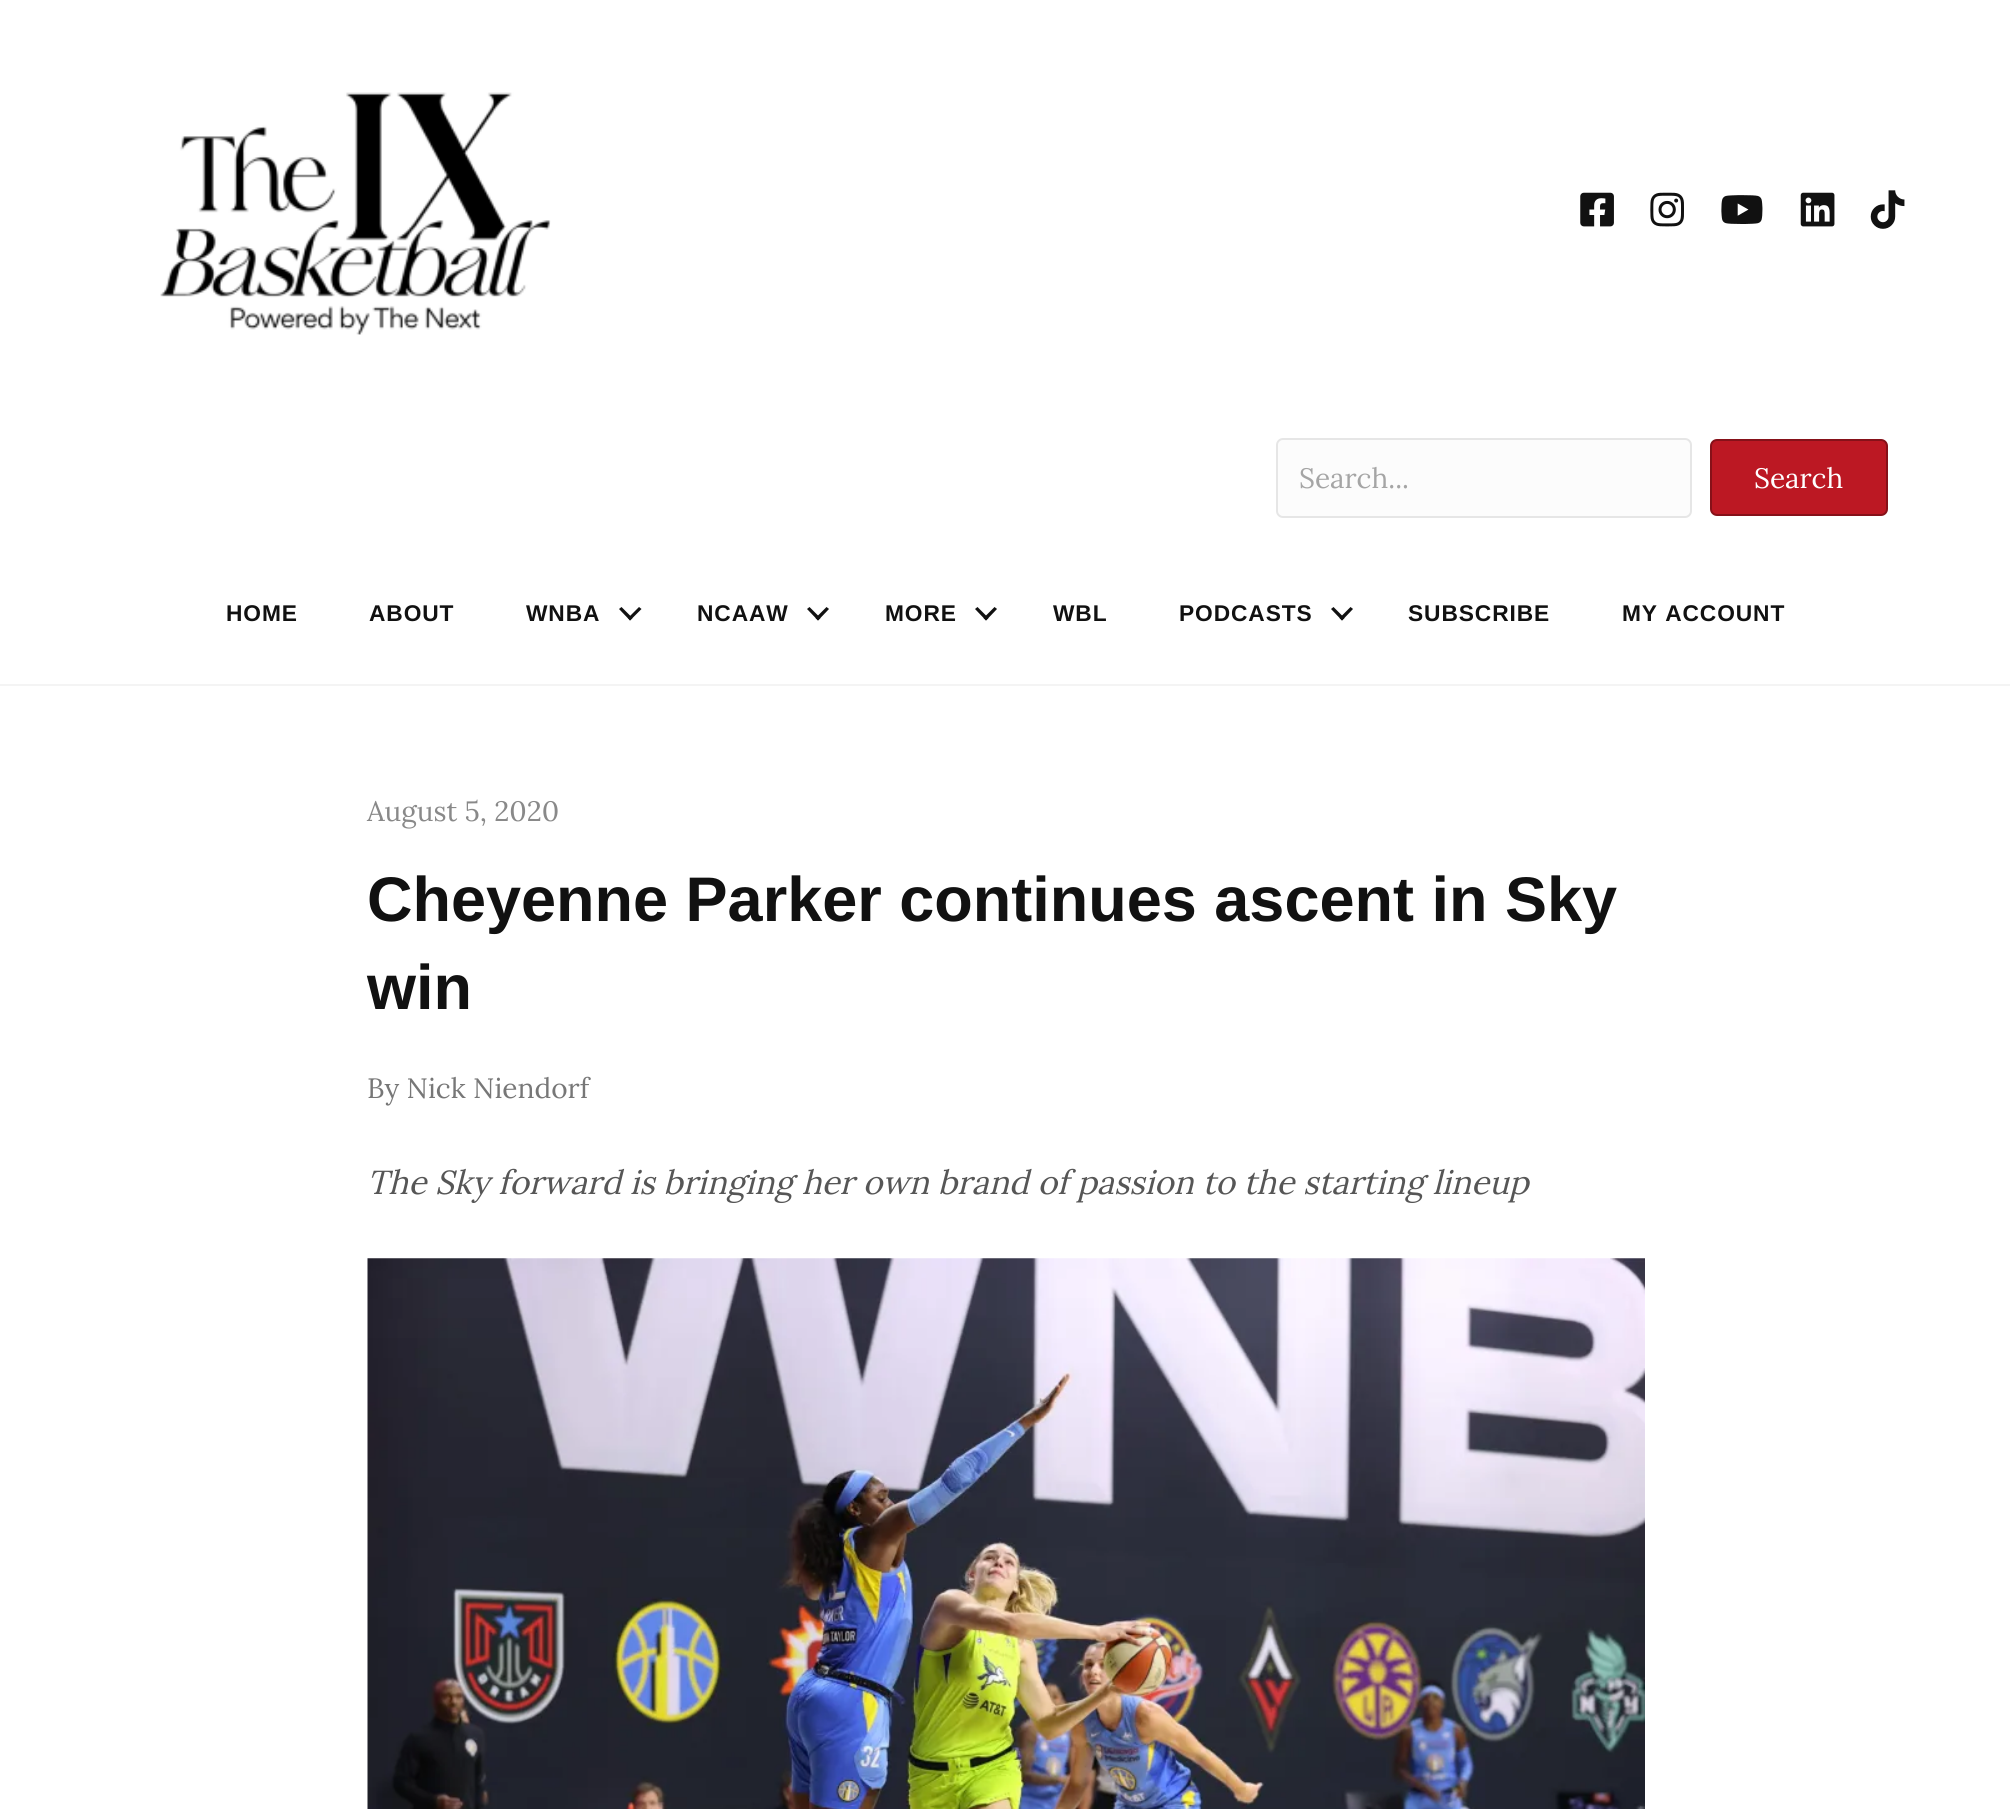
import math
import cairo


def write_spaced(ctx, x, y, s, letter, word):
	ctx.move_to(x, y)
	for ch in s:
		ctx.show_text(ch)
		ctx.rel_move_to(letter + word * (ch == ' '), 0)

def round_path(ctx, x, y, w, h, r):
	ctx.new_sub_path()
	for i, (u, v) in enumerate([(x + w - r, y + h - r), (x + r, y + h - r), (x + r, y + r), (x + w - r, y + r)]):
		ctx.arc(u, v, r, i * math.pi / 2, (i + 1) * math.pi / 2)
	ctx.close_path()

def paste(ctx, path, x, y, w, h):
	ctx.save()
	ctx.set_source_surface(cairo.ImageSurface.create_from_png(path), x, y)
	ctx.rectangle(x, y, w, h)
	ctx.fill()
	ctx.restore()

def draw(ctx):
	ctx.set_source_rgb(1, 1, 1)
	ctx.paint()
	ctx.set_source_rgb(0.957, 0.957, 0.957)
	ctx.rectangle(0, 684, 2010, 2)
	ctx.fill()
	paste(ctx, 'media/1.png', 160, 92, 391, 243)
	paste(ctx, 'media/2.png', 1580, 192, 34, 35)
	paste(ctx, 'media/3.png', 1650, 192, 34, 35)
	paste(ctx, 'media/4.png', 1721, 195, 42, 29)
	paste(ctx, 'media/5.png', 1800, 192, 35, 35)
	paste(ctx, 'media/6.png', 1870, 190, 35, 39)
	ctx.set_source_rgb(0.988, 0.988, 0.988)
	round_path(ctx, 1277, 439, 414, 78, 6)
	ctx.fill_preserve()
	ctx.set_source_rgb(0.902, 0.902, 0.902)
	ctx.stroke()
	ctx.select_font_face('Lora')
	ctx.set_font_size(28)
	ctx.set_source_rgb(0.647, 0.647, 0.647)
	ctx.move_to(1299, 488)
	ctx.show_text('Search...')
	ctx.set_source_rgb(0.737, 0.094, 0.137)
	round_path(ctx, 1711, 440, 176, 75, 6)
	ctx.fill_preserve()
	ctx.set_source_rgb(0.525, 0.067, 0.098)
	ctx.stroke()
	ctx.set_source_rgb(1, 1, 1)
	ctx.move_to(1754, 488)
	ctx.show_text('Search')
	ctx.select_font_face('Liberation Sans', cairo.FONT_SLANT_NORMAL, cairo.FONT_WEIGHT_BOLD)
	ctx.set_font_size(22.75)
	ctx.set_source_rgb(0.067, 0.067, 0.067)
	for x, y, s in [
		(226, 621, 'HOME'),
		(369, 621, 'ABOUT'),
		(526, 621, 'WNBA'),
	]:
		write_spaced(ctx, x, y, s, 0.9, 0)
	ctx.new_path()
	ctx.move_to(639, 607)
	ctx.line_to(641.5, 609)
	ctx.line_to(630, 620.5)
	ctx.line_to(628, 618)
	ctx.close_path()
	ctx.fill()
	ctx.new_path()
	ctx.move_to(621.5, 607)
	ctx.line_to(632.5, 618)
	ctx.line_to(630, 620.5)
	ctx.line_to(619, 609)
	ctx.close_path()
	ctx.fill()
	write_spaced(ctx, 697, 621, 'NCAAW', 0.9, 0)
	ctx.new_path()
	ctx.move_to(826.5, 607)
	ctx.line_to(829, 609)
	ctx.line_to(818, 620.5)
	ctx.line_to(815.5, 618)
	ctx.close_path()
	ctx.fill()
	ctx.new_path()
	ctx.move_to(809.5, 607)
	ctx.line_to(820.5, 618)
	ctx.line_to(818, 620.5)
	ctx.line_to(807, 609)
	ctx.close_path()
	ctx.fill()
	write_spaced(ctx, 885, 621, 'MORE', 0.9, 0)
	ctx.new_path()
	ctx.move_to(994.5, 607)
	ctx.line_to(997, 609)
	ctx.line_to(986, 620.5)
	ctx.line_to(983.5, 618)
	ctx.close_path()
	ctx.fill()
	ctx.new_path()
	ctx.move_to(977.5, 607)
	ctx.line_to(988.5, 618)
	ctx.line_to(986, 620.5)
	ctx.line_to(975, 609)
	ctx.close_path()
	ctx.fill()
	write_spaced(ctx, 1053, 621, 'WBL', 0.9, 0)
	write_spaced(ctx, 1179, 621, 'PODCASTS', 0.9, 0)
	ctx.new_path()
	ctx.move_to(1350.5, 607)
	ctx.line_to(1353, 609)
	ctx.line_to(1342, 620.5)
	ctx.line_to(1339.5, 618)
	ctx.close_path()
	ctx.fill()
	ctx.new_path()
	ctx.move_to(1333.5, 607)
	ctx.line_to(1344.5, 618)
	ctx.line_to(1342, 620.5)
	ctx.line_to(1331, 609)
	ctx.close_path()
	ctx.fill()
	write_spaced(ctx, 1408, 621, 'SUBSCRIBE', 0.9, 0)
	write_spaced(ctx, 1622, 621, 'MY ACCOUNT', 0.9, 0)
	ctx.select_font_face('Lora')
	ctx.set_font_size(28)
	ctx.set_source_rgb(0.537, 0.537, 0.537)
	ctx.move_to(367, 821)
	ctx.show_text('August 5, 2020')
	ctx.select_font_face('Liberation Sans', cairo.FONT_SLANT_NORMAL, cairo.FONT_WEIGHT_BOLD)
	ctx.set_font_size(63)
	ctx.set_source_rgb(0.067, 0.067, 0.067)
	ctx.move_to(367, 921)
	ctx.show_text('Cheyenne Parker continues ascent in Sky')
	ctx.move_to(367, 1009)
	ctx.show_text('win')
	ctx.select_font_face('Lora')
	ctx.set_font_size(28)
	ctx.set_source_rgb(0.467, 0.467, 0.467)
	ctx.move_to(367, 1098)
	ctx.show_text('By Nick Niendorf')
	ctx.select_font_face('Lora', cairo.FONT_SLANT_ITALIC)
	ctx.set_font_size(33.25)
	ctx.set_source_rgb(0.337, 0.337, 0.337)
	ctx.move_to(367, 1194)
	ctx.show_text('The Sky forward is bringing her own brand of passion to the starting lineup')
	paste(ctx, 'media/7.png', 367, 1258, 1278, 551)


surface = cairo.ImageSurface(cairo.FORMAT_RGB24, 2010, 1809)
ctx = cairo.Context(surface)
options = cairo.FontOptions()
options.set_hint_metrics(cairo.HINT_METRICS_OFF)
options.set_hint_style(cairo.HINT_STYLE_NONE)
ctx.set_font_options(options)
ctx.set_miter_limit(4)
draw(ctx)
surface.write_to_png('image.png')
